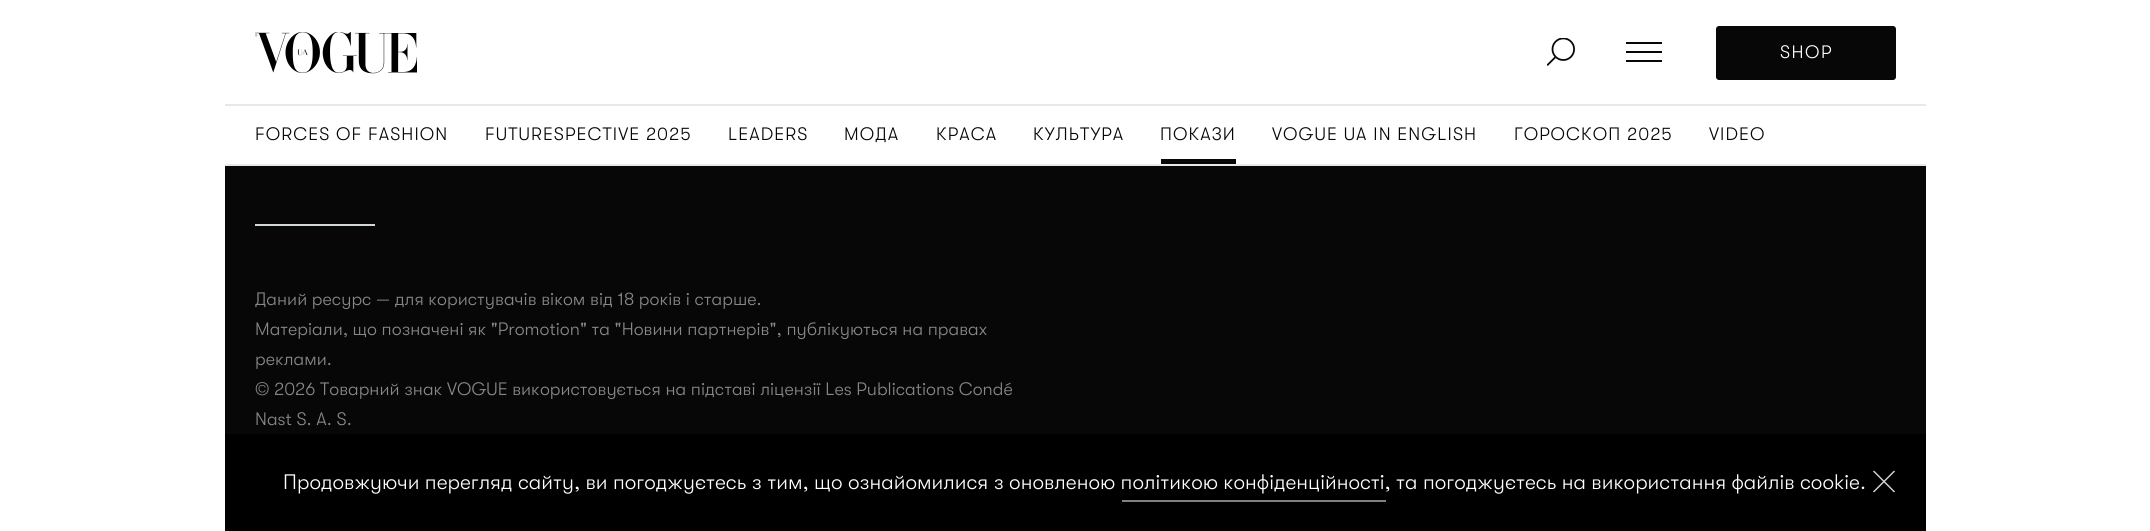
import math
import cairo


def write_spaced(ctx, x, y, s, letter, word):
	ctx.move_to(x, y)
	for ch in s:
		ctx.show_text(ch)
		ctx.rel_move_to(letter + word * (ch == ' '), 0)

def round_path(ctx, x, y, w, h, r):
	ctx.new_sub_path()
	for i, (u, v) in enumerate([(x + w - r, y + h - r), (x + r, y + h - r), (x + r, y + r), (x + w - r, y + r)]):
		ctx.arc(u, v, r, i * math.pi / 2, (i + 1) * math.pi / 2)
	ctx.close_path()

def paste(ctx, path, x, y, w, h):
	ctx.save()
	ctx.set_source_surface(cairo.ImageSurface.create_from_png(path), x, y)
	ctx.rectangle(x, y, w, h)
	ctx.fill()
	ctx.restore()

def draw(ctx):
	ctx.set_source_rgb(1, 1, 1)
	ctx.paint()
	ctx.set_source_rgb(0.906, 0.91, 0.91)
	ctx.rectangle(225, 164, 1701, 2)
	ctx.fill()
	paste(ctx, 'media/1.png', 255, 32, 162, 42)
	paste(ctx, 'media/2.png', 1547, 38, 28, 28)
	ctx.set_source_rgb(0.031, 0.031, 0.031)
	ctx.rectangle(1626, 42, 36, 2)
	ctx.rectangle(1626, 51, 36, 2)
	ctx.rectangle(1626, 60, 36, 2)
	ctx.fill()
	round_path(ctx, 1716, 26, 180, 54, 3)
	ctx.fill()
	ctx.select_font_face('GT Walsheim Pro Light')
	ctx.set_font_size(18)
	ctx.set_source_rgb(1, 1, 1)
	write_spaced(ctx, 1780, 58, 'SHOP', 1.5, 0)
	ctx.set_source_rgb(0.906, 0.91, 0.91)
	ctx.rectangle(225, 104, 1701, 2)
	ctx.fill()
	ctx.set_source_rgb(0.031, 0.031, 0.031)
	for x, y, s in [
		(255, 140, 'FORCES OF FASHION'),
		(485, 140, 'FUTURESPECTIVE 2025'),
		(728, 140, 'LEADERS'),
		(844, 140, 'МОДА'),
		(936, 140, 'КРАСА'),
		(1033, 140, 'КУЛЬТУРА'),
		(1160, 140, 'ПОКАЗИ'),
	]:
		write_spaced(ctx, x, y, s, 1.1, 0)
	ctx.rectangle(1161, 159, 75, 5)
	ctx.fill()
	for x, y, s in [
		(1272, 140, 'VOGUE UA IN ENGLISH'),
		(1514, 140, 'ГОРОСКОП 2025'),
		(1709, 140, 'VIDEO'),
	]:
		write_spaced(ctx, x, y, s, 1.1, 0)
	ctx.rectangle(225, 166, 1701, 268)
	ctx.fill()
	ctx.set_source_rgb(0.824, 0.843, 0.851)
	ctx.rectangle(255, 224, 120, 2)
	ctx.fill()
	ctx.set_source_rgb(0.533, 0.533, 0.533)
	for x, y, s in [
		(255, 305, 'Даний ресурс — для користувачів віком від 18 років і старше.'),
		(255, 335, 'Матеріали, що позначені як "Promotion" та "Новини партнерів", публікуються на правах'),
		(255, 365, 'реклами.'),
		(255, 395, '© 2026 Товарний знак VOGUE використовується на підставі ліцензії Les Publications Condé'),
		(255, 425, 'Nast S. A. S.'),
	]:
		write_spaced(ctx, x, y, s, 0.03, 0)
	ctx.set_source_rgb(0, 0, 0)
	ctx.rectangle(225, 434, 1701, 97)
	ctx.fill()
	ctx.set_font_size(21)
	ctx.set_source_rgb(1, 1, 1)
	write_spaced(ctx, 283, 489, 'Продовжуючи перегляд сайту, ви погоджуєтесь з тим, що ознайомилися з оновленою політикою конфіденційності, та погоджуєтесь на використання файлів cookie.', 0.03, 0)
	ctx.set_source_rgb(0.502, 0.502, 0.502)
	ctx.rectangle(1122, 500, 264, 2)
	ctx.fill()
	ctx.set_source_rgb(0.824, 0.843, 0.851)
	ctx.new_path()
	ctx.move_to(1894, 470.5)
	ctx.line_to(1895, 471.5)
	ctx.line_to(1874, 492.5)
	ctx.line_to(1873, 491.5)
	ctx.close_path()
	ctx.fill()
	ctx.new_path()
	ctx.move_to(1873, 471.5)
	ctx.line_to(1874, 470.5)
	ctx.line_to(1895, 491.5)
	ctx.line_to(1894, 492.5)
	ctx.close_path()
	ctx.fill()


surface = cairo.ImageSurface(cairo.FORMAT_RGB24, 2150, 531)
ctx = cairo.Context(surface)
options = cairo.FontOptions()
options.set_hint_metrics(cairo.HINT_METRICS_OFF)
options.set_hint_style(cairo.HINT_STYLE_NONE)
ctx.set_font_options(options)
ctx.set_miter_limit(4)
draw(ctx)
surface.write_to_png('image.png')
